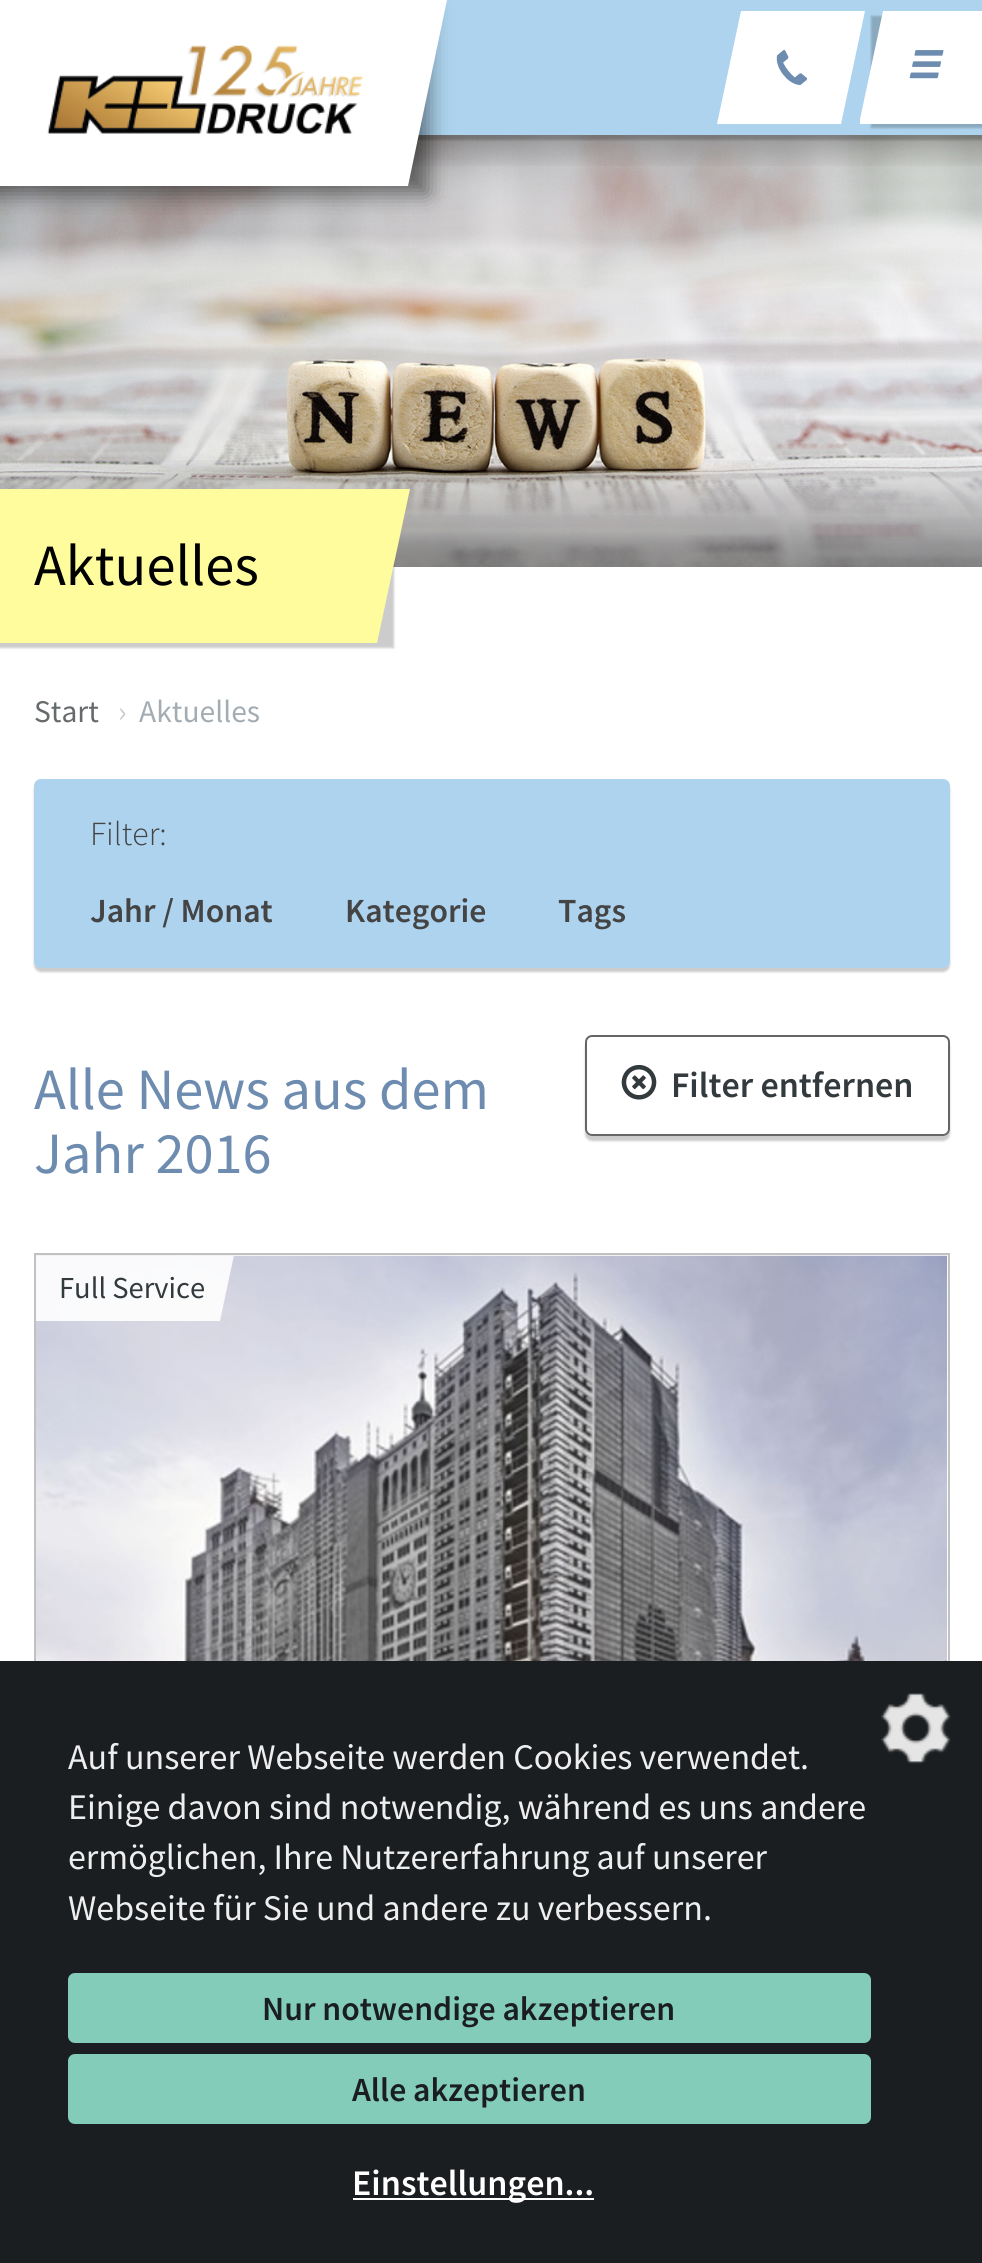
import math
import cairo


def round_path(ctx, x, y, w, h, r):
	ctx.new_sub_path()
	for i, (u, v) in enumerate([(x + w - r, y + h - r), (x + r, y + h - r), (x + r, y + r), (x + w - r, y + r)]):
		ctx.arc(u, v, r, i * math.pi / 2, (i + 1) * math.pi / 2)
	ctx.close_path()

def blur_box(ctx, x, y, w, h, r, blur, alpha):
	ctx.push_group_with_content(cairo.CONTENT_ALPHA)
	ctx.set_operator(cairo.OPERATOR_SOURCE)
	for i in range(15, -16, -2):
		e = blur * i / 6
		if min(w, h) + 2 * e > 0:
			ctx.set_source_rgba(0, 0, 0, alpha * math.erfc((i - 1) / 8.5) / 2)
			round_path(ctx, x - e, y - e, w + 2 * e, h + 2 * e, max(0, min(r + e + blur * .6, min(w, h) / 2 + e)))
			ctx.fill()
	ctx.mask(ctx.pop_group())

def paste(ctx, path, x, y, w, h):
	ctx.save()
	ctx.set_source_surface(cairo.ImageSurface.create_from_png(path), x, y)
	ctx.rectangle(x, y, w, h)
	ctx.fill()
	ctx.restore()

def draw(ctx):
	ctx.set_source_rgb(1, 1, 1)
	ctx.paint()
	paste(ctx, 'media/4.png', 0, 135, 982, 432)
	gradient = cairo.LinearGradient(492, 0, 492, 567)
	gradient.add_color_stop_rgba(0, 0, 0, 0, 1)
	gradient.add_color_stop_rgba(0.3, 0, 0, 0, 0)
	ctx.set_source(gradient)
	ctx.rectangle(412, 135, 570, 31)
	ctx.fill()
	ctx.set_source_rgb(0, 0, 0)
	blur_box(ctx, 0, 5, 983, 135, 0, 1, 0.2)
	ctx.set_source_rgb(0.678, 0.827, 0.933)
	ctx.rectangle(418, 0, 564, 135)
	ctx.fill()
	ctx.set_source_rgb(0, 0, 0)
	blur_box(ctx, 871, 16, 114, 112, 0, 1, 0.2)
	ctx.save()
	ctx.rectangle(860, 0, 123, 135)
	ctx.clip()
	ctx.set_source_rgb(1, 1, 1)
	ctx.new_path()
	ctx.move_to(883, 11)
	ctx.line_to(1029, 11)
	ctx.line_to(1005, 124)
	ctx.line_to(859, 124)
	ctx.close_path()
	ctx.fill()
	ctx.restore()
	ctx.set_source_rgb(1, 1, 1)
	ctx.new_path()
	ctx.move_to(741, 11)
	ctx.line_to(865, 11)
	ctx.line_to(841, 124)
	ctx.line_to(717, 124)
	ctx.close_path()
	ctx.fill()
	paste(ctx, 'media/1.png', 776, 50, 32, 35)
	paste(ctx, 'media/2.png', 909, 50, 35, 29)
	ctx.set_source_rgb(0, 0, 0)
	blur_box(ctx, -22, 7, 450, 187, 0, 11, 0.5)
	ctx.set_source_rgb(1, 1, 1)
	ctx.new_path()
	ctx.move_to(-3, 0)
	ctx.line_to(447, 0)
	ctx.line_to(408, 186)
	ctx.line_to(-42, 186)
	ctx.close_path()
	ctx.fill()
	paste(ctx, 'media/3.png', 47, 45, 317, 89)
	gradient = cairo.LinearGradient(492, 567, 492, 0)
	gradient.add_color_stop_rgba(0, 0, 0, 0, 0.4)
	gradient.add_color_stop_rgba(0.2, 0, 0, 0, 0)
	ctx.set_source(gradient)
	ctx.rectangle(0, 460, 982, 107)
	ctx.fill()
	ctx.set_source_rgb(0, 0, 0)
	blur_box(ctx, -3, 493, 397, 155, 0, 1, 0.2)
	ctx.set_source_rgb(1, 0.988, 0.62)
	ctx.new_path()
	ctx.move_to(-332, 489)
	ctx.line_to(410, 489)
	ctx.line_to(377, 643)
	ctx.line_to(-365, 643)
	ctx.close_path()
	ctx.fill()
	ctx.select_font_face('Source Sans Pro')
	ctx.set_font_size(58.5)
	ctx.set_source_rgb(0, 0, 0)
	ctx.move_to(34, 585)
	ctx.show_text('Aktuelles')
	ctx.set_font_size(31.5)
	ctx.set_source_rgb(0.4, 0.416, 0.427)
	ctx.move_to(34, 722)
	ctx.show_text('Start')
	ctx.set_source_rgb(0.8, 0.8, 0.8)
	ctx.move_to(118, 722)
	ctx.show_text('›')
	ctx.set_source_rgb(0.643, 0.675, 0.702)
	ctx.move_to(139, 722)
	ctx.show_text('Aktuelles')
	ctx.set_source_rgb(0, 0, 0)
	blur_box(ctx, 34, 783, 916, 189, 7, 1, 0.2)
	ctx.set_source_rgb(0.678, 0.827, 0.933)
	round_path(ctx, 34, 779, 916, 189, 7)
	ctx.fill()
	ctx.select_font_face('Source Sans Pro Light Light')
	ctx.set_font_size(33.75)
	ctx.set_source_rgb(0.267, 0.267, 0.267)
	ctx.move_to(90, 845)
	ctx.show_text('Filter:')
	ctx.select_font_face('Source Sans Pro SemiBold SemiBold')
	for x, y, s in [
		(90, 922, 'Jahr / Monat'),
		(345, 922, 'Kategorie'),
		(558, 922, 'Tags'),
	]:
		ctx.move_to(x, y)
		ctx.show_text(s)
	ctx.select_font_face('Source Sans Pro')
	ctx.set_font_size(58.5)
	ctx.set_source_rgb(0.427, 0.549, 0.69)
	ctx.move_to(34, 1109)
	ctx.show_text('Alle News aus dem')
	ctx.move_to(34, 1173)
	ctx.show_text('Jahr 2016')
	ctx.save()
	ctx.set_fill_rule(cairo.FILL_RULE_EVEN_ODD)
	ctx.new_path()
	ctx.move_to(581, 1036)
	ctx.line_to(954, 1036)
	ctx.line_to(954, 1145)
	ctx.line_to(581, 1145)
	ctx.close_path()
	ctx.move_to(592, 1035)
	ctx.line_to(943, 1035)
	ctx.curve_to(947, 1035, 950, 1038, 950, 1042)
	ctx.line_to(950, 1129)
	ctx.curve_to(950, 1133, 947, 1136, 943, 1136)
	ctx.line_to(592, 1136)
	ctx.curve_to(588, 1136, 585, 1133, 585, 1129)
	ctx.line_to(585, 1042)
	ctx.curve_to(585, 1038, 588, 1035, 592, 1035)
	ctx.close_path()
	ctx.clip()
	ctx.set_source_rgb(0, 0, 0)
	blur_box(ctx, 585, 1040, 365, 101, 7, 1, 0.2)
	ctx.restore()
	round_path(ctx, 586, 1036, 363, 99, 6)
	ctx.set_source_rgb(0.4, 0.4, 0.4)
	ctx.stroke()
	paste(ctx, 'media/5.png', 621, 1064, 36, 36)
	ctx.select_font_face('Source Sans Pro SemiBold SemiBold')
	ctx.set_font_size(36)
	ctx.set_source_rgb(0.196, 0.227, 0.239)
	ctx.move_to(671, 1097)
	ctx.show_text('Filter entfernen')
	ctx.rectangle(35, 1254, 914, 653)
	ctx.set_source_rgb(0.757, 0.757, 0.757)
	ctx.stroke()
	paste(ctx, 'media/6.png', 36, 1255, 912, 406)
	ctx.save()
	ctx.rectangle(36, 1256, 911, 650)
	ctx.clip()
	ctx.set_source_rgba(1, 1, 1, 0.9)
	ctx.new_path()
	ctx.move_to(9, 1255)
	ctx.line_to(234, 1255)
	ctx.line_to(220, 1321)
	ctx.line_to(-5, 1321)
	ctx.close_path()
	ctx.fill()
	ctx.restore()
	ctx.select_font_face('Source Sans Pro')
	ctx.set_font_size(30.5)
	ctx.set_source_rgb(0.196, 0.227, 0.239)
	ctx.move_to(59, 1298)
	ctx.show_text('Full Service')
	ctx.set_source_rgb(0.106, 0.118, 0.129)
	ctx.rectangle(0, 1661, 982, 602)
	ctx.fill()
	paste(ctx, 'media/7.png', 881, 1693, 70, 71)
	ctx.set_font_size(36)
	ctx.set_source_rgb(0.933, 0.933, 0.933)
	for x, y, s in [
		(68, 1769, 'Auf unserer Webseite werden Cookies verwendet.'),
		(68, 1819, 'Einige davon sind notwendig, während es uns andere'),
		(68, 1869, 'ermöglichen, Ihre Nutzererfahrung auf unserer'),
		(68, 1920, 'Webseite für Sie und andere zu verbessern.'),
	]:
		ctx.move_to(x, y)
		ctx.show_text(s)
	ctx.set_source_rgb(0.514, 0.8, 0.725)
	round_path(ctx, 68, 1973, 803, 70, 7)
	ctx.fill()
	ctx.select_font_face('Source Sans Pro SemiBold SemiBold')
	ctx.set_font_size(33.75)
	ctx.set_source_rgb(0.106, 0.118, 0.129)
	ctx.move_to(262, 2020)
	ctx.show_text('Nur notwendige akzeptieren')
	ctx.set_source_rgb(0.514, 0.8, 0.725)
	round_path(ctx, 68, 2054, 803, 70, 7)
	ctx.fill()
	ctx.set_source_rgb(0.106, 0.118, 0.129)
	ctx.move_to(352, 2101)
	ctx.show_text('Alle akzeptieren')
	ctx.set_source_rgb(1, 1, 1)
	ctx.rectangle(353, 2198, 241, 2)
	ctx.fill()
	ctx.set_font_size(36)
	ctx.move_to(352, 2195)
	ctx.show_text('Einstellungen...')


surface = cairo.ImageSurface(cairo.FORMAT_RGB24, 982, 2263)
ctx = cairo.Context(surface)
options = cairo.FontOptions()
options.set_hint_metrics(cairo.HINT_METRICS_OFF)
options.set_hint_style(cairo.HINT_STYLE_NONE)
ctx.set_font_options(options)
ctx.set_miter_limit(4)
draw(ctx)
surface.write_to_png('image.png')
